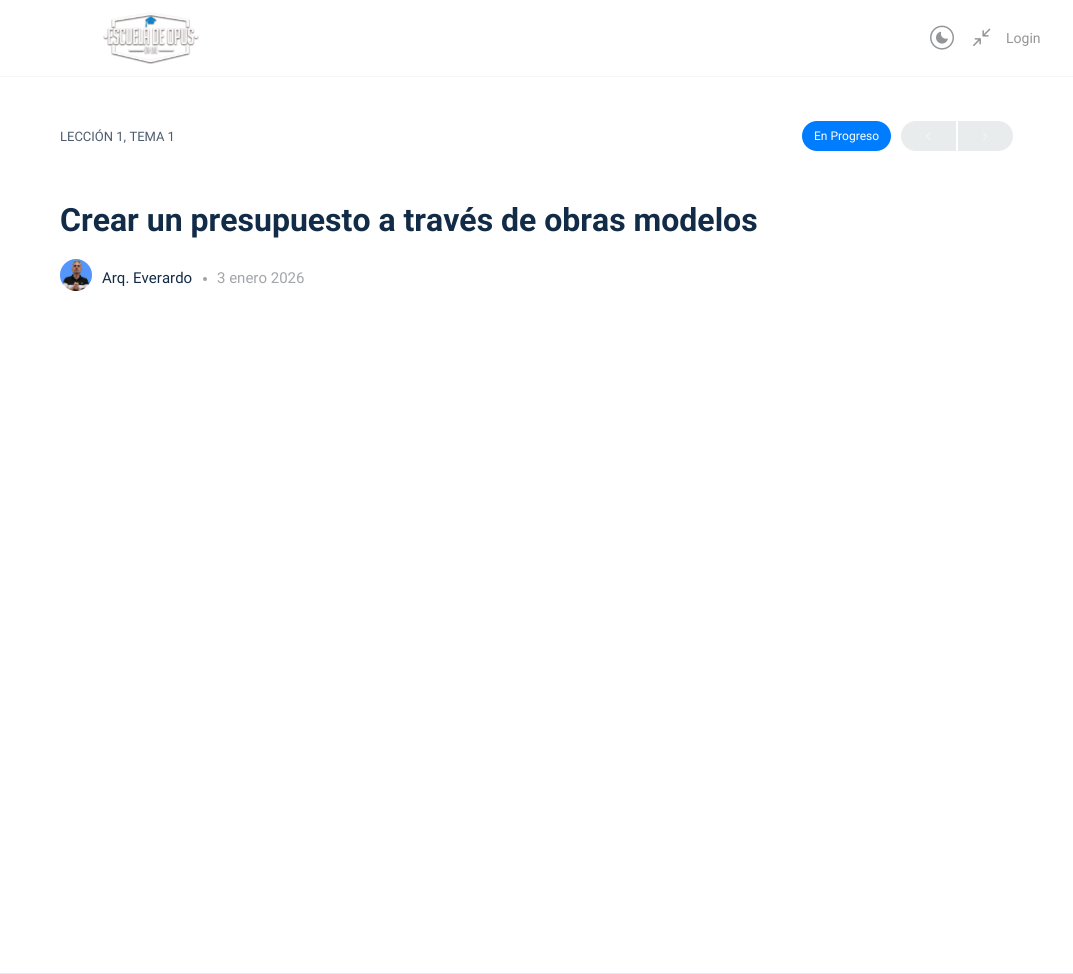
import math
import cairo


def round_path(ctx, x, y, w, h, r):
	ctx.new_sub_path()
	for i, (u, v) in enumerate([(x + w - r, y + h - r), (x + r, y + h - r), (x + r, y + r), (x + w - r, y + r)]):
		ctx.arc(u, v, r, i * math.pi / 2, (i + 1) * math.pi / 2)
	ctx.close_path()

def paste(ctx, path, x, y, w, h):
	ctx.save()
	ctx.set_source_surface(cairo.ImageSurface.create_from_png(path), x, y)
	ctx.rectangle(x, y, w, h)
	ctx.fill()
	ctx.restore()

def draw(ctx):
	ctx.set_source_rgb(1, 1, 1)
	ctx.paint()
	ctx.set_source_rgb(0.965, 0.965, 0.973)
	ctx.rectangle(0, 76, 1073, 1)
	ctx.fill()
	paste(ctx, 'media/1.png', 103, 12, 96, 52)
	paste(ctx, 'media/2.png', 930, 25, 24, 25)
	paste(ctx, 'media/3.png', 973, 28, 18, 18)
	ctx.select_font_face('Roboto')
	ctx.set_font_size(14)
	ctx.set_source_rgb(0.576, 0.584, 0.592)
	ctx.move_to(1006, 43)
	ctx.show_text('Login')
	ctx.set_source_rgb(0.906, 0.914, 0.925)
	ctx.rectangle(0, 973, 1073, 1)
	ctx.fill()
	ctx.set_font_size(13)
	ctx.set_source_rgb(0.302, 0.361, 0.427)
	ctx.move_to(60, 141)
	ctx.show_text('LECCIÓN 1, TEMA 1')
	ctx.set_source_rgb(0, 0.486, 1)
	round_path(ctx, 802, 121, 89, 30, 15)
	ctx.fill()
	ctx.set_font_size(12)
	ctx.set_source_rgb(1, 1, 1)
	ctx.move_to(814, 140)
	ctx.show_text('En Progreso')
	ctx.set_source_rgb(0.914, 0.922, 0.929)
	ctx.new_path()
	ctx.move_to(916, 121)
	ctx.line_to(956, 121)
	ctx.line_to(956, 151)
	ctx.line_to(916, 151)
	ctx.curve_to(907.5, 151, 901, 144.5, 901, 136)
	ctx.curve_to(901, 127.5, 907.5, 121, 916, 121)
	ctx.close_path()
	ctx.fill()
	paste(ctx, 'media/4.png', 926, 132, 4, 8)
	ctx.new_path()
	ctx.move_to(958, 121)
	ctx.line_to(998, 121)
	ctx.curve_to(1006.5, 121, 1013, 127.5, 1013, 136)
	ctx.curve_to(1013, 144.5, 1006.5, 151, 998, 151)
	ctx.line_to(958, 151)
	ctx.close_path()
	ctx.fill()
	paste(ctx, 'media/5.png', 983, 132, 4, 8)
	ctx.select_font_face('Roboto', cairo.FONT_SLANT_NORMAL, cairo.FONT_WEIGHT_BOLD)
	ctx.set_font_size(32)
	ctx.set_source_rgb(0.071, 0.169, 0.275)
	ctx.move_to(60, 231)
	ctx.show_text('Crear un presupuesto a través de obras modelos')
	paste(ctx, 'media/6.png', 60, 259, 32, 32)
	ctx.select_font_face('Roboto')
	ctx.set_font_size(15)
	ctx.move_to(102, 283)
	ctx.show_text('Arq. Everardo')
	ctx.set_source_rgb(0.639, 0.647, 0.663)
	ctx.new_path()
	ctx.arc(205, 279, 2, 0, 2 * math.pi)
	ctx.fill()
	ctx.move_to(217, 283)
	ctx.show_text('3 enero 2026')


surface = cairo.ImageSurface(cairo.FORMAT_RGB24, 1073, 974)
ctx = cairo.Context(surface)
options = cairo.FontOptions()
options.set_hint_metrics(cairo.HINT_METRICS_OFF)
options.set_hint_style(cairo.HINT_STYLE_NONE)
ctx.set_font_options(options)
ctx.set_miter_limit(4)
draw(ctx)
surface.write_to_png('image.png')
